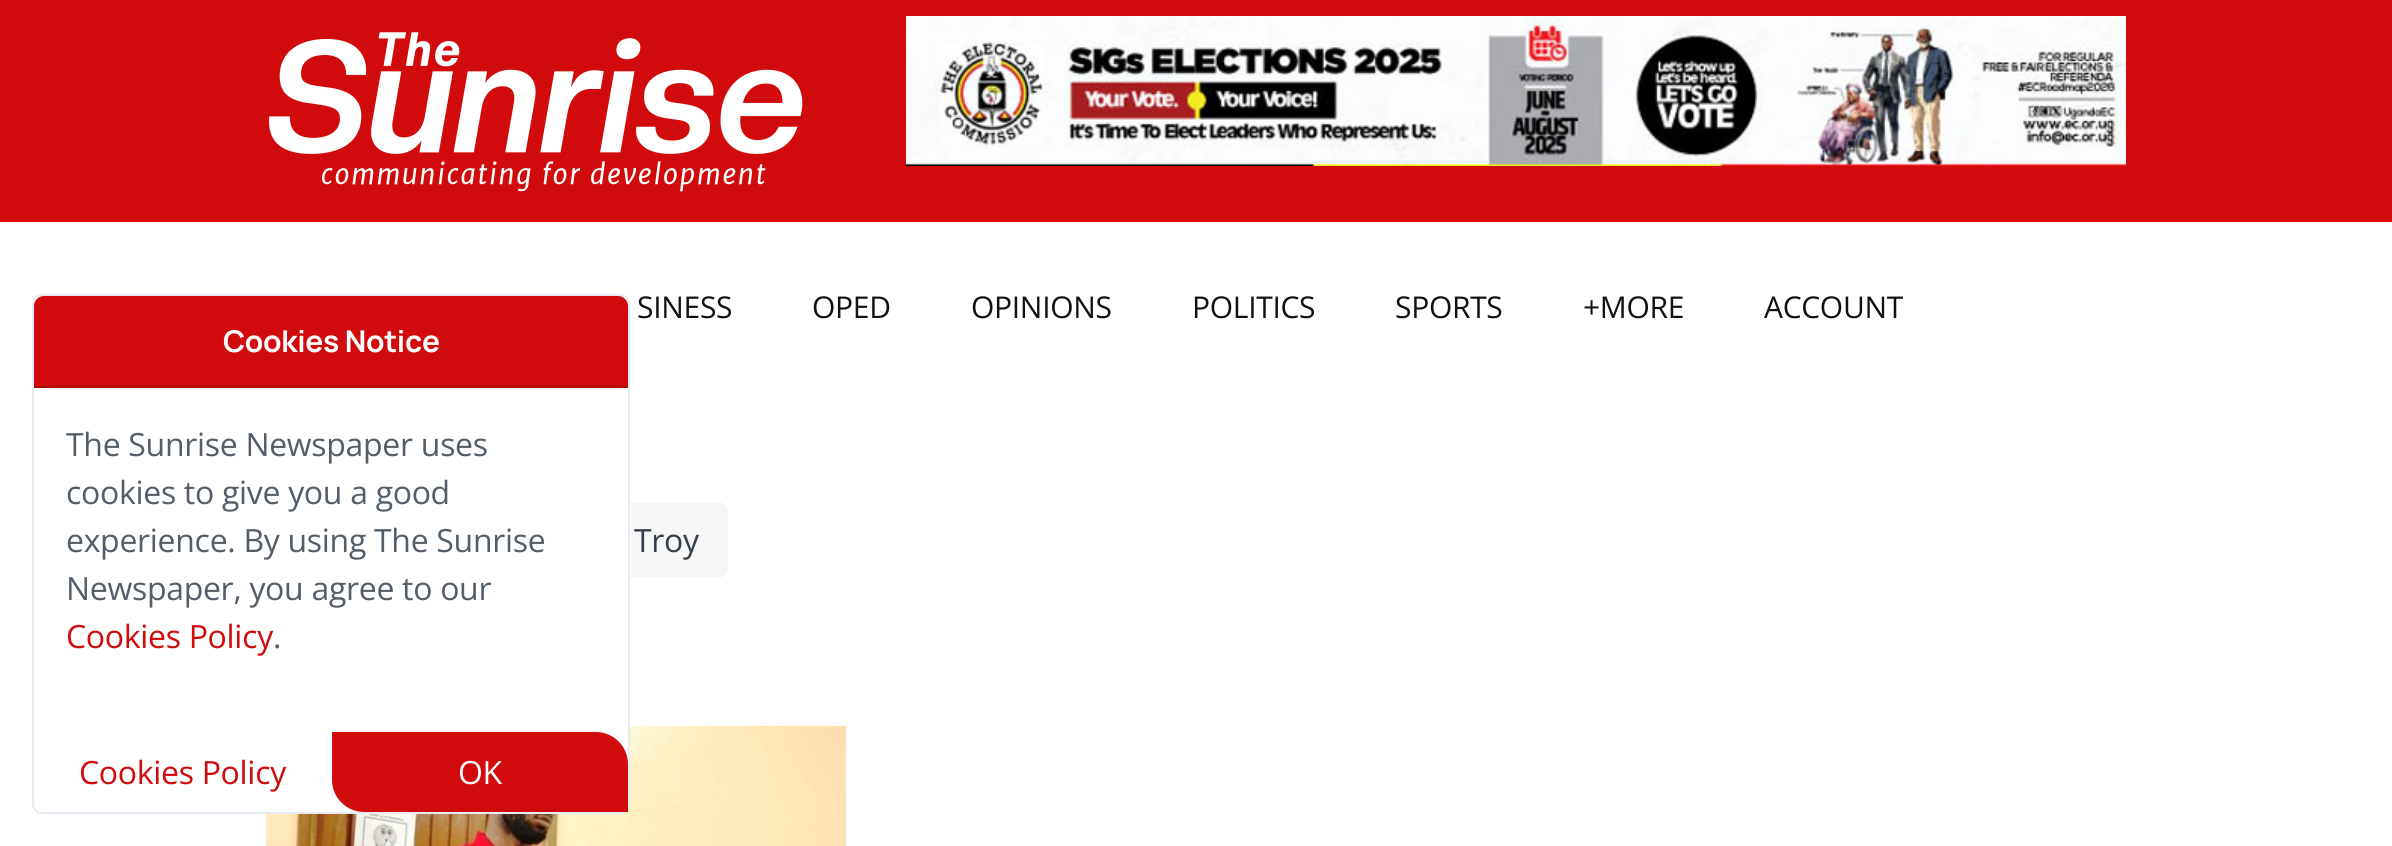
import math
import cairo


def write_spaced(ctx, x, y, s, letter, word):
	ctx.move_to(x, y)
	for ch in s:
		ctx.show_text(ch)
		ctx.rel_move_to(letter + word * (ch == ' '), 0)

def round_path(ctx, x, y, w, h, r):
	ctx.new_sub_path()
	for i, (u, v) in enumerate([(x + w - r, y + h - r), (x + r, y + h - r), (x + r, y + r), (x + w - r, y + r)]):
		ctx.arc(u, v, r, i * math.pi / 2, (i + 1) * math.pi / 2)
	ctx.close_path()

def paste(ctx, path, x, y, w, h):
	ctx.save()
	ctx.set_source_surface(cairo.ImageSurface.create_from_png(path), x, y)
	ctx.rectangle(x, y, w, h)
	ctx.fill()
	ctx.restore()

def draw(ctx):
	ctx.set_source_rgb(1, 1, 1)
	ctx.paint()
	ctx.set_source_rgb(0.82, 0.043, 0.043)
	ctx.rectangle(0, 0, 2392, 222)
	ctx.fill()
	paste(ctx, 'media/1.png', 269, 32, 534, 160)
	paste(ctx, 'media/2.png', 906, 16, 1220, 150)
	ctx.select_font_face('Open Sans')
	ctx.set_font_size(30)
	ctx.set_source_rgb(0.067, 0.067, 0.067)
	for x, y, s in [
		(637, 318, 'SINESS'),
		(812, 318, 'OPED'),
		(971, 318, 'OPINIONS'),
		(1192, 318, 'POLITICS'),
		(1395, 318, 'SPORTS'),
		(1583, 318, '+MORE'),
		(1764, 318, 'ACCOUNT'),
	]:
		write_spaced(ctx, x, y, s, -0.3, 0)
	ctx.set_source_rgb(0.961, 0.961, 0.961)
	round_path(ctx, 606, 502, 122, 76, 10)
	ctx.fill()
	paste(ctx, 'media/3.png', 266, 726, 580, 120)
	ctx.set_source_rgb(1, 1, 1)
	round_path(ctx, 33, 295, 596, 518, 9)
	ctx.fill_preserve()
	ctx.set_source_rgb(0.906, 0.918, 0.953)
	ctx.stroke()
	ctx.set_source_rgb(0.82, 0.043, 0.043)
	ctx.new_path()
	ctx.move_to(44, 296)
	ctx.line_to(618, 296)
	ctx.curve_to(623.5, 296, 628, 300.5, 628, 306)
	ctx.line_to(628, 388)
	ctx.line_to(34, 388)
	ctx.line_to(34, 306)
	ctx.curve_to(34, 300.5, 38.5, 296, 44, 296)
	ctx.close_path()
	ctx.fill()
	ctx.set_source_rgb(0.675, 0.035, 0.035)
	ctx.rectangle(34, 386, 594, 2)
	ctx.fill()
	ctx.select_font_face('Manrope', cairo.FONT_SLANT_NORMAL, cairo.FONT_WEIGHT_BOLD)
	ctx.set_source_rgb(1, 1, 1)
	write_spaced(ctx, 223, 352, 'Cookies Notice', -0.3, 0)
	ctx.select_font_face('Open Sans')
	ctx.set_font_size(32)
	ctx.set_source_rgb(0.329, 0.369, 0.412)
	for x, y, s in [
		(66, 456, 'The Sunrise Newspaper uses'),
		(66, 504, 'cookies to give you a good'),
		(66, 552, 'experience. By using The Sunrise'),
		(66, 600, 'Newspaper, you agree to our'),
	]:
		write_spaced(ctx, x, y, s, -0.3, 0)
	ctx.set_source_rgb(0.82, 0.043, 0.043)
	write_spaced(ctx, 66, 648, 'Cookies Policy', -0.3, 0)
	ctx.set_source_rgb(0.329, 0.369, 0.412)
	write_spaced(ctx, 273, 648, '.', -0.3, 0)
	ctx.set_source_rgb(0.82, 0.043, 0.043)
	write_spaced(ctx, 79, 784, 'Cookies Policy', -0.3, 0)
	ctx.new_path()
	ctx.move_to(332, 732)
	ctx.line_to(596, 732)
	ctx.curve_to(613.5, 732, 628, 746.5, 628, 764)
	ctx.line_to(628, 812)
	ctx.line_to(364, 812)
	ctx.curve_to(346.5, 812, 332, 797.5, 332, 780)
	ctx.close_path()
	ctx.fill()
	ctx.set_source_rgb(1, 1, 1)
	write_spaced(ctx, 458, 784, 'OK', -0.3, 0)
	ctx.set_source_rgb(0.2, 0.243, 0.282)
	write_spaced(ctx, 634, 552, 'Troy', -0.3, 0)


surface = cairo.ImageSurface(cairo.FORMAT_RGB24, 2392, 846)
ctx = cairo.Context(surface)
options = cairo.FontOptions()
options.set_hint_metrics(cairo.HINT_METRICS_OFF)
options.set_hint_style(cairo.HINT_STYLE_NONE)
ctx.set_font_options(options)
ctx.set_miter_limit(4)
draw(ctx)
surface.write_to_png('image.png')
